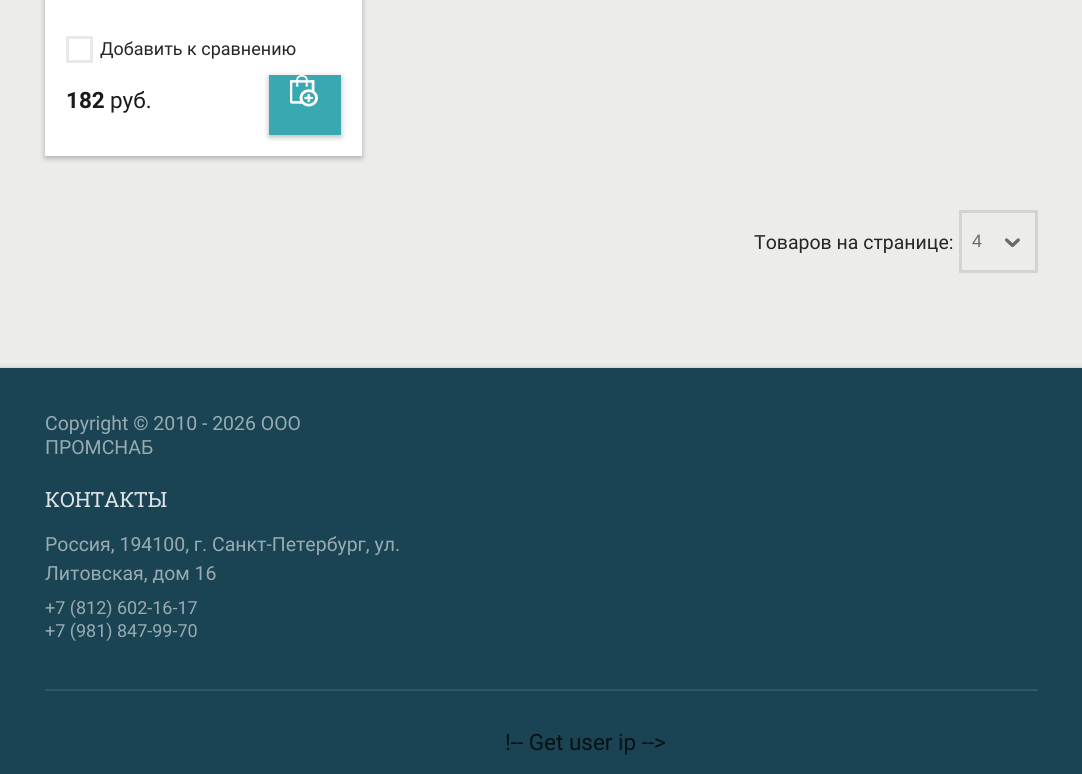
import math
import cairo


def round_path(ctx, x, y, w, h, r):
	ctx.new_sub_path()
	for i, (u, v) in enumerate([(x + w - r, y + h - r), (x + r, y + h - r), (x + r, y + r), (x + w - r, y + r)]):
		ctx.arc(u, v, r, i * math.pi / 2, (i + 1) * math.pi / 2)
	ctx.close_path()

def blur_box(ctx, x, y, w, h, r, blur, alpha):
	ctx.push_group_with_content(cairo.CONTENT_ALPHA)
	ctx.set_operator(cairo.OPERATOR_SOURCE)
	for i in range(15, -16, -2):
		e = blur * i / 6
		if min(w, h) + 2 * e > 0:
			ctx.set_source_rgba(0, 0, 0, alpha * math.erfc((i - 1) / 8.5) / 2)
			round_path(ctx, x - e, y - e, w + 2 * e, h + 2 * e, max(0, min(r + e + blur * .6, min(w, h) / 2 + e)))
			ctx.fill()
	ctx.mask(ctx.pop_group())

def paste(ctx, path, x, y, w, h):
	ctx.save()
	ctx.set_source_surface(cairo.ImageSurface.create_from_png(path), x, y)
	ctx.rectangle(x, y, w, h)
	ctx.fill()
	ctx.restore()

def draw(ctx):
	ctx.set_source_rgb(0.925, 0.925, 0.918)
	ctx.paint()
	ctx.set_source_rgb(0, 0, 0)
	blur_box(ctx, 45, -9, 317, 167, 0, 3, 0.28)
	ctx.set_source_rgb(1, 1, 1)
	ctx.rectangle(45, 0, 317, 156)
	ctx.fill()
	ctx.rectangle(67.5, 37.5, 24, 24)
	ctx.set_source_rgb(0.914, 0.914, 0.914)
	ctx.set_line_width(3)
	ctx.stroke()
	ctx.select_font_face('Roboto')
	ctx.set_font_size(18)
	ctx.set_source_rgb(0.149, 0.149, 0.149)
	ctx.move_to(100, 55)
	ctx.show_text('Добавить к сравнению')
	ctx.select_font_face('Roboto', cairo.FONT_SLANT_NORMAL, cairo.FONT_WEIGHT_BOLD)
	ctx.set_font_size(22.5)
	ctx.set_source_rgb(0.102, 0.102, 0.102)
	ctx.move_to(66, 108)
	ctx.show_text('182')
	ctx.select_font_face('Roboto')
	ctx.move_to(110, 108)
	ctx.show_text('руб.')
	ctx.set_source_rgb(0, 0, 0)
	blur_box(ctx, 269, 77, 72, 60, 0, 3, 0.28)
	ctx.set_source_rgb(0.227, 0.659, 0.69)
	ctx.rectangle(269, 75, 72, 60)
	ctx.fill()
	paste(ctx, 'media/1.png', 290, 75, 28, 32)
	ctx.set_font_size(19.5)
	ctx.set_source_rgb(0.149, 0.149, 0.149)
	ctx.move_to(754, 249)
	ctx.show_text('Товаров на странице:')
	ctx.rectangle(960.5, 211.5, 76, 60)
	ctx.set_source_rgb(0.831, 0.831, 0.827)
	ctx.stroke()
	ctx.select_font_face('Liberation Sans')
	ctx.set_font_size(18)
	ctx.set_source_rgb(0.416, 0.416, 0.412)
	ctx.move_to(972, 247)
	ctx.show_text('4')
	paste(ctx, 'media/2.png', 1005, 238, 15, 10)
	ctx.set_source_rgb(0, 0, 0)
	blur_box(ctx, 0, 369, 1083, 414, 0, 3, 0.28)
	ctx.set_source_rgb(0.102, 0.267, 0.329)
	ctx.rectangle(0, 368, 1082, 406)
	ctx.fill()
	ctx.select_font_face('Roboto')
	ctx.set_font_size(19.5)
	ctx.set_source_rgb(0.596, 0.671, 0.698)
	ctx.move_to(45, 430)
	ctx.show_text('Copyright © 2010 - 2026 ООО')
	ctx.move_to(45, 454)
	ctx.show_text('ПРОМСНАБ')
	ctx.select_font_face('Roboto Slab')
	ctx.set_font_size(21)
	ctx.set_source_rgb(0.867, 0.89, 0.898)
	ctx.move_to(45, 507)
	ctx.show_text('КОНТАКТЫ')
	ctx.select_font_face('Roboto')
	ctx.set_font_size(19.5)
	ctx.set_source_rgb(0.596, 0.671, 0.698)
	ctx.move_to(45, 551)
	ctx.show_text('Россия, 194100, г. Санкт-Петербург, ул.')
	ctx.move_to(45, 580)
	ctx.show_text('Литовская, дом 16')
	ctx.set_font_size(18)
	ctx.move_to(45, 614)
	ctx.show_text('+7 (812) 602-16-17')
	ctx.move_to(45, 637)
	ctx.show_text('+7 (981) 847-99-70')
	ctx.set_source_rgb(0.192, 0.341, 0.396)
	ctx.rectangle(45, 689, 993, 2)
	ctx.fill()
	ctx.set_font_size(22.5)
	ctx.set_source_rgb(0.027, 0.067, 0.082)
	ctx.move_to(505, 750)
	ctx.show_text('!-- Get user ip -->')


surface = cairo.ImageSurface(cairo.FORMAT_RGB24, 1082, 774)
ctx = cairo.Context(surface)
options = cairo.FontOptions()
options.set_hint_metrics(cairo.HINT_METRICS_OFF)
options.set_hint_style(cairo.HINT_STYLE_NONE)
ctx.set_font_options(options)
ctx.set_miter_limit(4)
draw(ctx)
surface.write_to_png('image.png')
